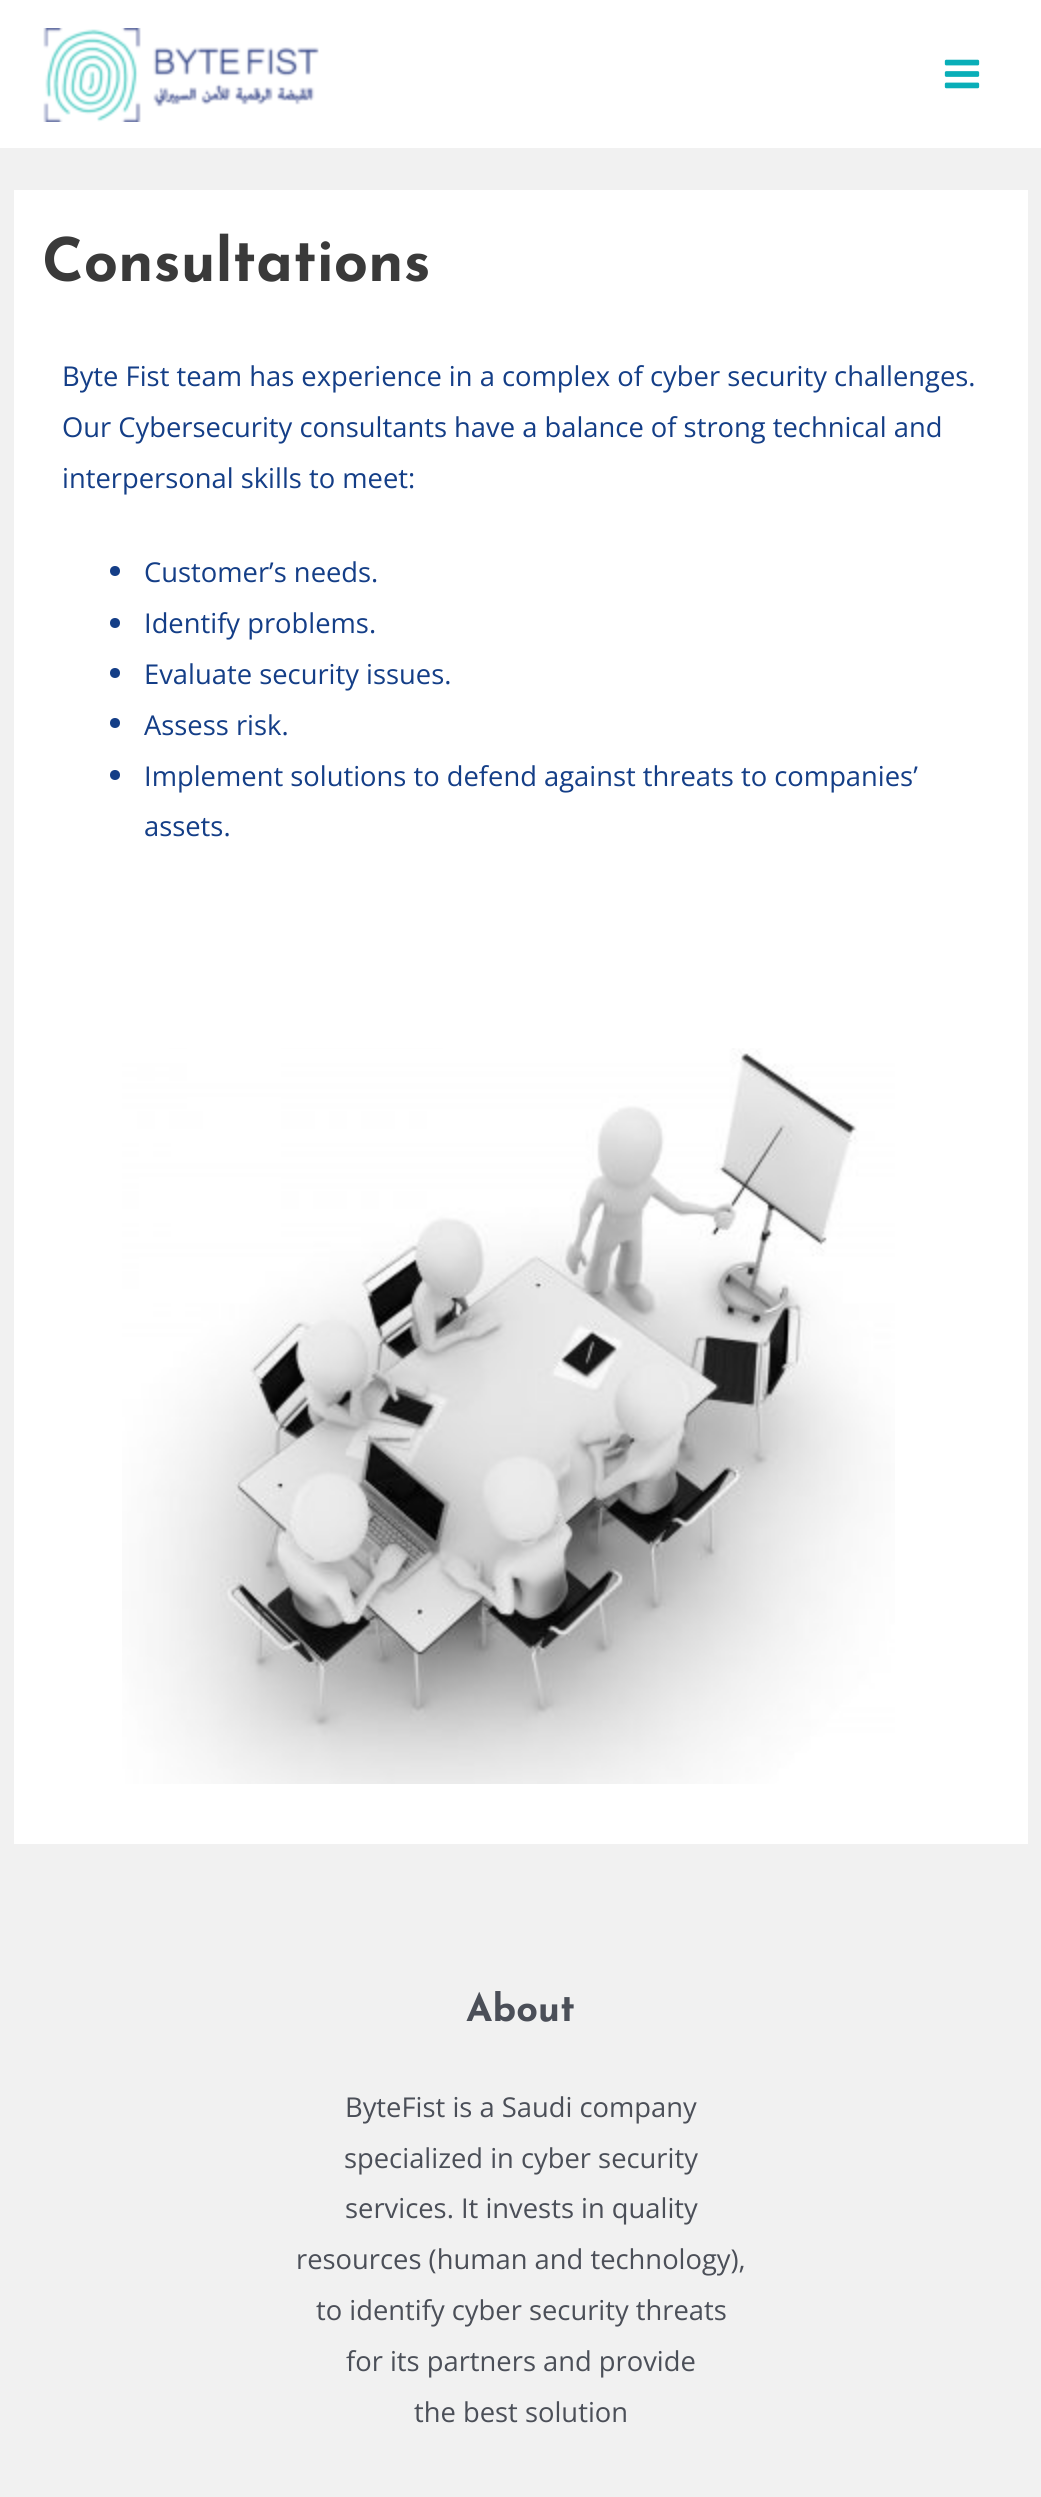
import math
import cairo


def paste(ctx, path, x, y, w, h):
	ctx.save()
	ctx.set_source_surface(cairo.ImageSurface.create_from_png(path), x, y)
	ctx.rectangle(x, y, w, h)
	ctx.fill()
	ctx.restore()

def draw(ctx):
	ctx.set_source_rgb(0.945, 0.945, 0.945)
	ctx.paint()
	ctx.set_source_rgb(1, 1, 1)
	ctx.rectangle(0, 0, 1041, 148)
	ctx.fill()
	paste(ctx, 'media/1.png', 43, 28, 276, 94)
	paste(ctx, 'media/2.png', 944, 59, 36, 30)
	ctx.rectangle(14, 190, 1014, 1654)
	ctx.fill()
	ctx.select_font_face('Josefin Sans Thin')
	ctx.set_font_size(60)
	ctx.set_source_rgb(0.227, 0.227, 0.227)
	ctx.move_to(42, 281)
	ctx.show_text('Consultations')
	ctx.select_font_face('Open Sans')
	ctx.set_font_size(27.35)
	ctx.set_source_rgb(0.082, 0.243, 0.529)
	for x, y, s in [
		(62, 386, 'Byte Fist team has experience in a complex of cyber security challenges.'),
		(62, 437, 'Our Cybersecurity consultants have a balance of strong technical and'),
		(62, 488, 'interpersonal skills to meet:'),
	]:
		ctx.move_to(x, y)
		ctx.show_text(s)
	ctx.new_path()
	ctx.arc(115, 571, 5, 0, 2 * math.pi)
	ctx.fill()
	ctx.move_to(144, 582)
	ctx.show_text('Customer’s needs.')
	ctx.new_path()
	ctx.arc(115, 623, 5, 0, 2 * math.pi)
	ctx.fill()
	ctx.move_to(144, 633)
	ctx.show_text('Identify problems.')
	ctx.new_path()
	ctx.arc(115, 673, 5, 0, 2 * math.pi)
	ctx.fill()
	ctx.move_to(144, 684)
	ctx.show_text('Evaluate security issues.')
	ctx.new_path()
	ctx.arc(115, 723, 5, 0, 2 * math.pi)
	ctx.fill()
	ctx.move_to(144, 735)
	ctx.show_text('Assess risk.')
	ctx.new_path()
	ctx.arc(115, 775, 5, 0, 2 * math.pi)
	ctx.fill()
	ctx.move_to(144, 786)
	ctx.show_text('Implement solutions to defend against threats to companies’')
	ctx.move_to(144, 836)
	ctx.show_text('assets.')
	paste(ctx, 'media/3.png', 122, 1048, 773, 736)
	ctx.select_font_face('Josefin Sans Thin')
	ctx.set_font_size(38)
	ctx.set_source_rgb(0.294, 0.31, 0.345)
	ctx.move_to(466, 2021)
	ctx.show_text('About')
	ctx.select_font_face('Open Sans')
	ctx.set_font_size(27.35)
	for x, y, s in [
		(345, 2117, 'ByteFist is a Saudi company'),
		(344, 2168, 'specialized in cyber security'),
		(345, 2218, 'services. It invests in quality'),
		(296, 2269, 'resources (human and technology),'),
		(316, 2320, 'to identify cyber security threats'),
		(346, 2371, 'for its partners and provide'),
		(414, 2422, 'the best solution'),
	]:
		ctx.move_to(x, y)
		ctx.show_text(s)


surface = cairo.ImageSurface(cairo.FORMAT_RGB24, 1041, 2497)
ctx = cairo.Context(surface)
options = cairo.FontOptions()
options.set_hint_metrics(cairo.HINT_METRICS_OFF)
options.set_hint_style(cairo.HINT_STYLE_NONE)
ctx.set_font_options(options)
ctx.set_miter_limit(4)
draw(ctx)
surface.write_to_png('image.png')
